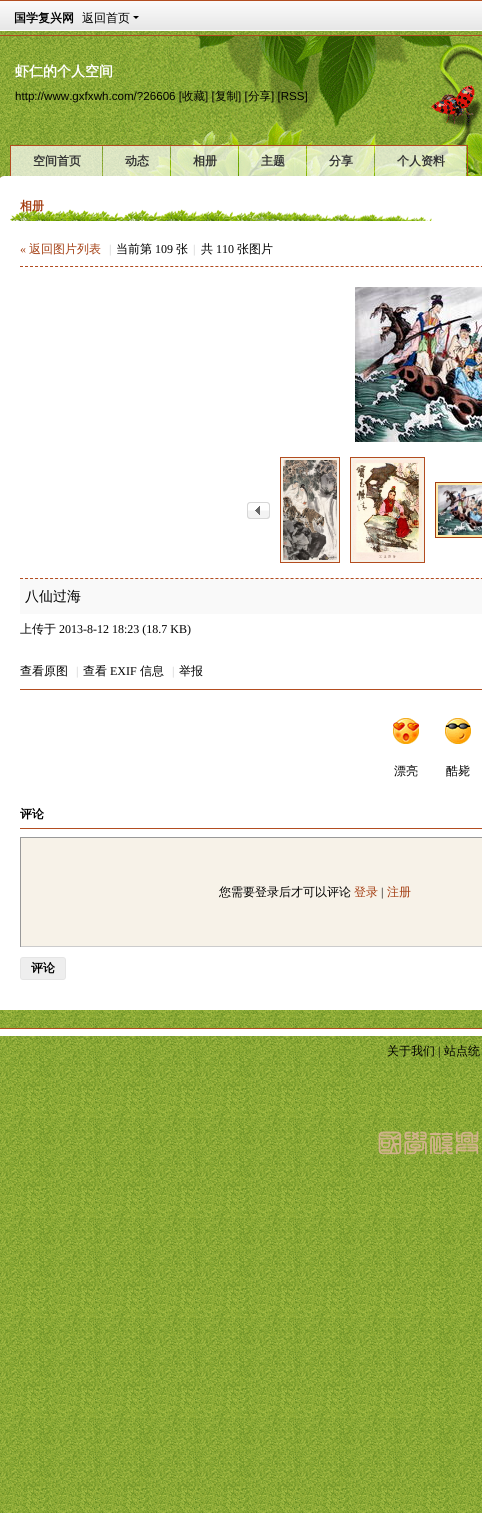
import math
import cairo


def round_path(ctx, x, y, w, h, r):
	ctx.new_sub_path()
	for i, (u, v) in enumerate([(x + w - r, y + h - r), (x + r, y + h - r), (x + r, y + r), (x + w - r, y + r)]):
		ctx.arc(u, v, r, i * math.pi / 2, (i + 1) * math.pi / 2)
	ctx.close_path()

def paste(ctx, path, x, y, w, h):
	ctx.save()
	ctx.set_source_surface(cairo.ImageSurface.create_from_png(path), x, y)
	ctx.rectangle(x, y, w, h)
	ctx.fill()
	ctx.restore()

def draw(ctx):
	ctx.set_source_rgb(1, 1, 1)
	ctx.paint()
	paste(ctx, 'media/1.png', 0, 31, 482, 1482)
	paste(ctx, 'media/2.png', 0, 1, 482, 30)
	ctx.set_source_rgb(0.702, 0.302, 0.125)
	ctx.rectangle(0, 0, 482, 1)
	ctx.fill()
	ctx.rectangle(0, 35, 482, 1)
	ctx.fill()
	ctx.select_font_face('WenQuanYi Zen Hei', cairo.FONT_SLANT_NORMAL, cairo.FONT_WEIGHT_BOLD)
	ctx.set_font_size(12)
	ctx.set_source_rgb(0, 0, 0)
	ctx.move_to(14, 22)
	ctx.show_text('国学复兴网')
	ctx.select_font_face('WenQuanYi Zen Hei Medium')
	ctx.move_to(82, 22)
	ctx.show_text('返回首页')
	ctx.new_path()
	ctx.move_to(133, 16)
	ctx.line_to(139, 16)
	ctx.line_to(136, 19)
	ctx.close_path()
	ctx.fill()
	paste(ctx, 'media/3.png', 120, 36, 362, 140)
	ctx.select_font_face('WenQuanYi Zen Hei', cairo.FONT_SLANT_NORMAL, cairo.FONT_WEIGHT_BOLD)
	ctx.set_font_size(14)
	ctx.set_source_rgb(1, 1, 1)
	ctx.move_to(15, 76)
	ctx.show_text('虾仁的个人空间')
	ctx.select_font_face('Liberation Sans')
	ctx.set_font_size(11.6)
	ctx.set_source_rgb(0, 0, 0)
	ctx.move_to(15, 100)
	ctx.show_text('http://www.gxfxwh.com/?26606 [')
	ctx.select_font_face('WenQuanYi Zen Hei Medium')
	ctx.move_to(182, 100)
	ctx.show_text('收藏')
	ctx.select_font_face('Liberation Sans')
	ctx.move_to(205, 100)
	ctx.show_text('] [')
	ctx.select_font_face('WenQuanYi Zen Hei Medium')
	ctx.move_to(215, 100)
	ctx.show_text('复制')
	ctx.select_font_face('Liberation Sans')
	ctx.move_to(238, 100)
	ctx.show_text('] [')
	ctx.select_font_face('WenQuanYi Zen Hei Medium')
	ctx.move_to(248, 100)
	ctx.show_text('分享')
	ctx.select_font_face('Liberation Sans')
	ctx.move_to(271, 100)
	ctx.show_text('] [RSS]')
	ctx.set_source_rgb(0.702, 0.302, 0.125)
	ctx.rectangle(10, 145, 458, 1)
	ctx.rectangle(467, 145, 1, 31)
	ctx.rectangle(10, 145, 1, 31)
	ctx.fill()
	ctx.set_source_rgba(1, 1, 1, 0.7)
	ctx.rectangle(11, 146, 91, 30)
	ctx.fill()
	ctx.select_font_face('WenQuanYi Zen Hei', cairo.FONT_SLANT_NORMAL, cairo.FONT_WEIGHT_BOLD)
	ctx.set_font_size(12)
	ctx.set_source_rgb(0.2, 0.2, 0.2)
	ctx.move_to(33, 165)
	ctx.show_text('空间首页')
	ctx.set_source_rgba(1, 1, 1, 0.7)
	ctx.rectangle(103, 146, 67, 30)
	ctx.fill()
	ctx.set_source_rgb(0.2, 0.2, 0.2)
	ctx.move_to(125, 165)
	ctx.show_text('动态')
	ctx.set_source_rgba(1, 1, 1, 0.7)
	ctx.rectangle(171, 146, 67, 30)
	ctx.fill()
	ctx.set_source_rgb(0.2, 0.2, 0.2)
	ctx.move_to(193, 165)
	ctx.show_text('相册')
	ctx.set_source_rgba(1, 1, 1, 0.7)
	ctx.rectangle(239, 146, 67, 30)
	ctx.fill()
	ctx.set_source_rgb(0.2, 0.2, 0.2)
	ctx.move_to(261, 165)
	ctx.show_text('主题')
	ctx.set_source_rgba(1, 1, 1, 0.7)
	ctx.rectangle(307, 146, 67, 30)
	ctx.fill()
	ctx.set_source_rgb(0.2, 0.2, 0.2)
	ctx.move_to(329, 165)
	ctx.show_text('分享')
	ctx.set_source_rgba(1, 1, 1, 0.7)
	ctx.rectangle(375, 146, 91, 30)
	ctx.fill()
	ctx.set_source_rgb(0.2, 0.2, 0.2)
	ctx.move_to(397, 165)
	ctx.show_text('个人资料')
	ctx.set_source_rgb(1, 1, 1)
	ctx.rectangle(0, 176, 482, 834)
	ctx.fill()
	paste(ctx, 'media/4.png', 0, 176, 4, 2)
	paste(ctx, 'media/5.png', 10, 209, 424, 12)
	ctx.set_source_rgb(0.643, 0.247, 0.075)
	ctx.move_to(20, 210)
	ctx.show_text('相册')
	ctx.new_path()
	ctx.move_to(20, 266.5)
	ctx.line_to(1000, 266.5)
	ctx.set_source_rgb(0.702, 0.302, 0.125)
	ctx.set_line_width(1)
	ctx.set_dash([3, 2.01])
	ctx.stroke()
	ctx.select_font_face('Liberation Serif')
	ctx.set_source_rgb(0.643, 0.247, 0.075)
	ctx.move_to(20, 253)
	ctx.show_text('«')
	ctx.select_font_face('WenQuanYi Zen Hei Medium')
	ctx.move_to(29, 253)
	ctx.show_text('返回图片列表')
	ctx.select_font_face('Liberation Serif')
	ctx.set_source_rgb(0.8, 0.8, 0.8)
	ctx.move_to(109, 253)
	ctx.show_text('|')
	ctx.select_font_face('WenQuanYi Zen Hei Medium')
	ctx.set_source_rgb(0, 0, 0)
	ctx.move_to(116, 253)
	ctx.show_text('当前第')
	ctx.select_font_face('Liberation Serif')
	ctx.move_to(155, 253)
	ctx.show_text('109')
	ctx.select_font_face('WenQuanYi Zen Hei Medium')
	ctx.move_to(176, 253)
	ctx.show_text('张')
	ctx.select_font_face('Liberation Serif')
	ctx.set_source_rgb(0.8, 0.8, 0.8)
	ctx.move_to(193, 253)
	ctx.show_text('|')
	ctx.select_font_face('WenQuanYi Zen Hei Medium')
	ctx.set_source_rgb(0, 0, 0)
	ctx.move_to(201, 253)
	ctx.show_text('共')
	ctx.select_font_face('Liberation Serif')
	ctx.move_to(216, 253)
	ctx.show_text('110')
	ctx.select_font_face('WenQuanYi Zen Hei Medium')
	ctx.move_to(237, 253)
	ctx.show_text('张图片')
	paste(ctx, 'media/6.png', 355, 287, 127, 155)
	ctx.set_source_rgb(0.965, 0.949, 0.91)
	ctx.rectangle(280.5, 457.5, 59, 105)
	ctx.fill_preserve()
	ctx.set_source_rgb(0.702, 0.302, 0.125)
	ctx.set_dash([])
	ctx.stroke()
	ctx.set_source_rgb(0.965, 0.949, 0.91)
	ctx.rectangle(350.5, 457.5, 74, 105)
	ctx.fill_preserve()
	ctx.set_source_rgb(0.702, 0.302, 0.125)
	ctx.stroke()
	paste(ctx, 'media/7.png', 283, 460, 54, 100)
	paste(ctx, 'media/8.png', 353, 460, 69, 100)
	ctx.set_source_rgb(1, 0.918, 0.659)
	ctx.rectangle(435.5, 482.5, 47, 55)
	ctx.fill_preserve()
	ctx.set_source_rgb(0.643, 0.247, 0.075)
	ctx.stroke()
	paste(ctx, 'media/9.png', 247, 502, 23, 17)
	paste(ctx, 'media/10.png', 438, 485, 44, 50)
	ctx.set_source_rgb(0.702, 0.302, 0.125)
	ctx.rectangle(20, 689, 462, 1)
	ctx.fill()
	ctx.set_source_rgb(0.976, 0.976, 0.976)
	ctx.rectangle(20, 578, 462, 36)
	ctx.fill()
	ctx.new_path()
	ctx.move_to(20, 578.5)
	ctx.line_to(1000, 578.5)
	ctx.set_source_rgb(0.702, 0.302, 0.125)
	ctx.set_dash([3, 2.01])
	ctx.stroke()
	ctx.set_font_size(14)
	ctx.set_source_rgb(0, 0, 0)
	ctx.move_to(25, 601)
	ctx.show_text('八仙过海')
	ctx.set_font_size(12)
	ctx.move_to(20, 633)
	ctx.show_text('上传于')
	ctx.select_font_face('Liberation Serif')
	ctx.move_to(59, 633)
	ctx.show_text('2013-8-12 18:23 (18.7 KB)')
	ctx.select_font_face('WenQuanYi Zen Hei Medium')
	ctx.move_to(20, 675)
	ctx.show_text('查看原图')
	ctx.select_font_face('Liberation Serif')
	ctx.set_source_rgb(0.8, 0.8, 0.8)
	ctx.move_to(76, 675)
	ctx.show_text('|')
	ctx.select_font_face('WenQuanYi Zen Hei Medium')
	ctx.set_source_rgb(0, 0, 0)
	ctx.move_to(83, 675)
	ctx.show_text('查看')
	ctx.select_font_face('Liberation Serif')
	ctx.move_to(110, 675)
	ctx.show_text('EXIF')
	ctx.select_font_face('WenQuanYi Zen Hei Medium')
	ctx.move_to(140, 675)
	ctx.show_text('信息')
	ctx.select_font_face('Liberation Serif')
	ctx.set_source_rgb(0.8, 0.8, 0.8)
	ctx.move_to(172, 675)
	ctx.show_text('|')
	ctx.select_font_face('WenQuanYi Zen Hei Medium')
	ctx.set_source_rgb(0, 0, 0)
	ctx.move_to(179, 675)
	ctx.show_text('举报')
	paste(ctx, 'media/11.png', 393, 718, 26, 26)
	ctx.move_to(394, 775)
	ctx.show_text('漂亮')
	paste(ctx, 'media/12.png', 445, 718, 26, 26)
	ctx.move_to(446, 775)
	ctx.show_text('酷毙')
	ctx.set_source_rgb(0.702, 0.302, 0.125)
	ctx.rectangle(20, 828, 462, 1)
	ctx.fill()
	ctx.select_font_face('WenQuanYi Zen Hei', cairo.FONT_SLANT_NORMAL, cairo.FONT_WEIGHT_BOLD)
	ctx.set_source_rgb(0, 0, 0)
	ctx.move_to(20, 818)
	ctx.show_text('评论')
	ctx.set_source_rgb(0.6, 0.6, 0.6)
	ctx.rectangle(20, 837, 462, 1)
	ctx.fill()
	ctx.set_source_rgb(0.8, 0.8, 0.8)
	ctx.rectangle(20, 946, 462, 1)
	ctx.fill()
	ctx.set_source_rgb(0.6, 0.6, 0.6)
	ctx.rectangle(20, 837, 1, 110)
	ctx.fill()
	ctx.set_source_rgb(0.965, 0.949, 0.91)
	ctx.rectangle(21, 838, 461, 108)
	ctx.fill()
	ctx.select_font_face('WenQuanYi Zen Hei Medium')
	ctx.set_source_rgb(0, 0, 0)
	ctx.move_to(219, 896)
	ctx.show_text('您需要登录后才可以评论')
	ctx.set_source_rgb(0.643, 0.247, 0.075)
	ctx.move_to(354, 896)
	ctx.show_text('登录')
	ctx.select_font_face('Liberation Serif')
	ctx.set_source_rgb(0, 0, 0)
	ctx.move_to(381, 896)
	ctx.show_text('|')
	ctx.select_font_face('WenQuanYi Zen Hei Medium')
	ctx.set_source_rgb(0.643, 0.247, 0.075)
	ctx.move_to(387, 896)
	ctx.show_text('注册')
	ctx.set_source_rgb(0.933, 0.933, 0.933)
	round_path(ctx, 20.5, 957.5, 45, 22, 2.5)
	ctx.fill_preserve()
	ctx.set_source_rgb(0.898, 0.898, 0.898)
	ctx.set_dash([])
	ctx.stroke()
	ctx.select_font_face('WenQuanYi Zen Hei', cairo.FONT_SLANT_NORMAL, cairo.FONT_WEIGHT_BOLD)
	ctx.set_source_rgb(0, 0, 0)
	ctx.move_to(31, 972)
	ctx.show_text('评论')
	ctx.set_source_rgb(1, 1, 1)
	ctx.rectangle(0, 1029, 482, 7)
	ctx.fill()
	ctx.set_source_rgb(0.702, 0.302, 0.125)
	ctx.rectangle(0, 1028, 482, 1)
	ctx.fill()
	ctx.select_font_face('WenQuanYi Zen Hei Medium')
	ctx.set_source_rgb(0, 0, 0)
	ctx.move_to(387, 1055)
	ctx.show_text('关于我们')
	ctx.select_font_face('Liberation Serif')
	ctx.move_to(438, 1055)
	ctx.show_text('|')
	ctx.select_font_face('WenQuanYi Zen Hei Medium')
	ctx.move_to(444, 1055)
	ctx.show_text('站点统')
	paste(ctx, 'media/13.png', 378, 1131, 101, 24)


surface = cairo.ImageSurface(cairo.FORMAT_RGB24, 482, 1513)
ctx = cairo.Context(surface)
options = cairo.FontOptions()
options.set_hint_metrics(cairo.HINT_METRICS_OFF)
options.set_hint_style(cairo.HINT_STYLE_NONE)
ctx.set_font_options(options)
ctx.set_miter_limit(4)
draw(ctx)
surface.write_to_png('image.png')
